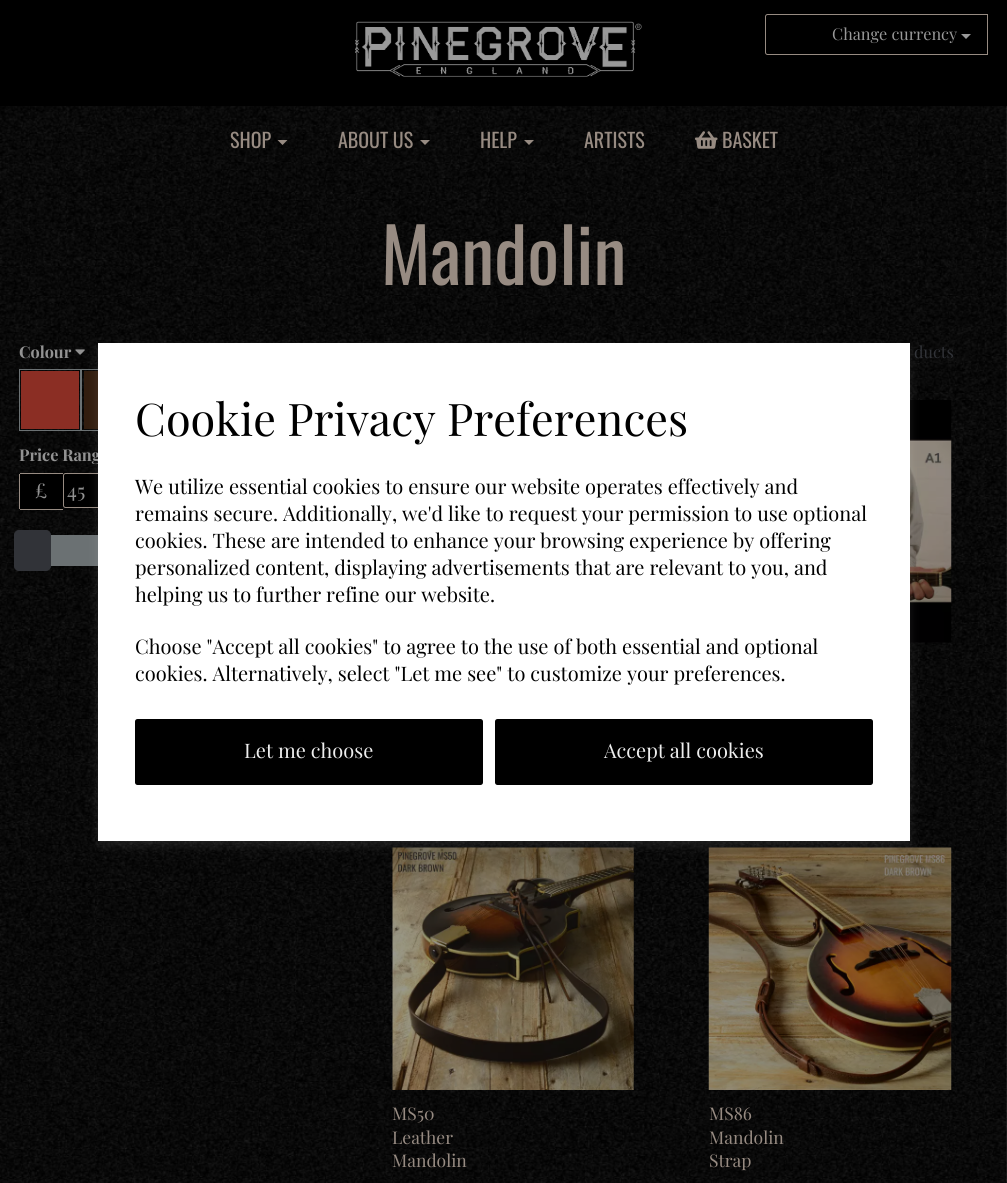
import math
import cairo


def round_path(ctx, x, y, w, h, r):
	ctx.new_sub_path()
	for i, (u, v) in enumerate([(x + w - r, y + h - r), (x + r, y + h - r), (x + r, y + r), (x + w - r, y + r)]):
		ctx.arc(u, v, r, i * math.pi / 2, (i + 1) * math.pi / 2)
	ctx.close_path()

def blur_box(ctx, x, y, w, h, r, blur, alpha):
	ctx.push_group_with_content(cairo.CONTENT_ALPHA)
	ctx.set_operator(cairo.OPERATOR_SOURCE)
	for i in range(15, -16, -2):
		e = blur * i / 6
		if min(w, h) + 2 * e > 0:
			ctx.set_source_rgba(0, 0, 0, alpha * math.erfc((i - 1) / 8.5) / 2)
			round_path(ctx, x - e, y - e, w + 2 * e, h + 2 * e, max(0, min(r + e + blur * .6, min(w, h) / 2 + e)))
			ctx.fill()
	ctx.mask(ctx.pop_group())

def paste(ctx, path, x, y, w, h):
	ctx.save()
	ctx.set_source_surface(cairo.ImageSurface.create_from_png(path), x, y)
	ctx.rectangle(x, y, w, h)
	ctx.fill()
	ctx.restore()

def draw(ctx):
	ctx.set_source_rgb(1, 1, 1)
	ctx.paint()
	paste(ctx, 'media/1.png', 0, 106, 1007, 1077)
	ctx.set_source_rgb(0, 0, 0)
	ctx.rectangle(0, 0, 1007, 106)
	ctx.fill()
	paste(ctx, 'media/2.png', 355, 21, 287, 56)
	ctx.new_path()
	ctx.move_to(767.5, 14.5)
	ctx.line_to(987.5, 14.5)
	ctx.line_to(987.5, 54.5)
	ctx.line_to(767.5, 54.5)
	ctx.curve_to(766.5, 54.5, 765.5, 53.5, 765.5, 52.5)
	ctx.line_to(765.5, 16.5)
	ctx.curve_to(765.5, 15.5, 766.5, 14.5, 767.5, 14.5)
	ctx.close_path()
	ctx.set_source_rgb(0.592, 0.545, 0.51)
	ctx.set_line_width(1)
	ctx.stroke()
	ctx.select_font_face('Playfair Display')
	ctx.set_font_size(16.25)
	ctx.set_source_rgb(0.6, 0.6, 0.6)
	ctx.move_to(832, 40)
	ctx.show_text('Change currency')
	ctx.new_path()
	ctx.move_to(961, 34)
	ctx.line_to(971, 34)
	ctx.line_to(966, 39)
	ctx.close_path()
	ctx.fill()
	ctx.select_font_face('Oswald')
	ctx.set_font_size(20)
	ctx.set_source_rgb(0.592, 0.545, 0.51)
	ctx.move_to(230, 148)
	ctx.show_text('SHOP')
	ctx.new_path()
	ctx.move_to(277.5, 140)
	ctx.line_to(287.5, 140)
	ctx.line_to(282.5, 145)
	ctx.close_path()
	ctx.fill()
	ctx.move_to(338, 148)
	ctx.show_text('ABOUT US')
	ctx.new_path()
	ctx.move_to(420, 140)
	ctx.line_to(430, 140)
	ctx.line_to(425, 145)
	ctx.close_path()
	ctx.fill()
	ctx.move_to(480, 148)
	ctx.show_text('HELP')
	ctx.new_path()
	ctx.move_to(524, 140)
	ctx.line_to(534, 140)
	ctx.line_to(529, 145)
	ctx.close_path()
	ctx.fill()
	ctx.move_to(584, 148)
	ctx.show_text('ARTISTS')
	paste(ctx, 'media/3.png', 695, 131, 23, 18)
	ctx.move_to(722, 148)
	ctx.show_text('BASKET')
	ctx.set_font_size(75)
	ctx.move_to(381, 285)
	ctx.show_text('Mandolin')
	ctx.select_font_face('Playfair Display', cairo.FONT_SLANT_NORMAL, cairo.FONT_WEIGHT_BOLD)
	ctx.set_font_size(16.25)
	ctx.set_source_rgb(0.573, 0.573, 0.573)
	ctx.move_to(19, 358)
	ctx.show_text('Colour')
	paste(ctx, 'media/4.png', 75, 349, 10, 6)
	ctx.rectangle(19.5, 369.5, 61, 61)
	ctx.set_source_rgb(0.42, 0.443, 0.451)
	ctx.stroke()
	ctx.set_source_rgb(0.545, 0.18, 0.141)
	ctx.rectangle(21, 371, 58, 58)
	ctx.fill()
	ctx.rectangle(81.5, 369.5, 62, 61)
	ctx.set_source_rgb(0.42, 0.443, 0.451)
	ctx.stroke()
	ctx.set_source_rgb(0.196, 0.114, 0.059)
	ctx.rectangle(84, 371, 14, 58)
	ctx.fill()
	ctx.set_source_rgb(0.573, 0.573, 0.573)
	ctx.move_to(19, 461)
	ctx.show_text('Price Rang')
	ctx.set_source_rgb(0, 0, 0)
	ctx.new_path()
	ctx.move_to(21.5, 473)
	ctx.line_to(63, 473)
	ctx.line_to(63, 510)
	ctx.line_to(21.5, 510)
	ctx.curve_to(20, 510, 19, 509, 19, 507.5)
	ctx.line_to(19, 475.5)
	ctx.curve_to(19, 474, 20, 473, 21.5, 473)
	ctx.close_path()
	ctx.fill()
	ctx.set_source_rgb(0.592, 0.545, 0.51)
	ctx.rectangle(20, 473, 43, 1)
	ctx.rectangle(20, 509, 43, 1)
	ctx.rectangle(19, 474, 1, 35)
	ctx.fill()
	ctx.select_font_face('Playfair Display')
	ctx.set_font_size(20)
	ctx.set_source_rgb(0.573, 0.573, 0.573)
	ctx.move_to(35, 498)
	ctx.show_text('£')
	ctx.set_source_rgb(0, 0, 0)
	ctx.new_path()
	ctx.move_to(65.5, 473.5)
	ctx.line_to(148.5, 473.5)
	ctx.line_to(148.5, 507.5)
	ctx.line_to(65.5, 507.5)
	ctx.curve_to(64.5, 507.5, 63.5, 506.5, 63.5, 505.5)
	ctx.line_to(63.5, 475.5)
	ctx.curve_to(63.5, 474.5, 64.5, 473.5, 65.5, 473.5)
	ctx.close_path()
	ctx.fill_preserve()
	ctx.set_source_rgb(0.592, 0.545, 0.51)
	ctx.stroke()
	ctx.set_source_rgb(0.573, 0.573, 0.573)
	ctx.move_to(67, 498)
	ctx.show_text('45')
	ctx.set_source_rgb(0.42, 0.443, 0.451)
	ctx.rectangle(51, 536, 47, 29)
	ctx.fill()
	ctx.rectangle(31.5, 535.5, 273, 30)
	ctx.stroke()
	ctx.set_source_rgb(0.192, 0.2, 0.22)
	round_path(ctx, 14.5, 530.5, 36, 40, 4.5)
	ctx.fill_preserve()
	ctx.stroke()
	ctx.set_font_size(16.25)
	ctx.move_to(914, 358)
	ctx.show_text('ducts')
	paste(ctx, 'media/5.png', 910, 400, 42, 243)
	paste(ctx, 'media/6.png', 392, 847, 242, 243)
	ctx.set_font_size(17.5)
	ctx.set_source_rgb(0.592, 0.545, 0.51)
	for x, y, s in [
		(392, 1120, 'MS50'),
		(392, 1144, 'Leather'),
		(392, 1167, 'Mandolin'),
	]:
		ctx.move_to(x, y)
		ctx.show_text(s)
	paste(ctx, 'media/7.png', 708, 847, 244, 243)
	for x, y, s in [
		(709, 1120, 'MS86'),
		(709, 1144, 'Mandolin'),
		(709, 1167, 'Strap'),
	]:
		ctx.move_to(x, y)
		ctx.show_text(s)
	ctx.set_source_rgb(1, 1, 1)
	blur_box(ctx, 98, 348, 812, 498, 0, 5, 0.1)
	ctx.set_source_rgb(1, 1, 1)
	ctx.rectangle(98, 343, 812, 498)
	ctx.fill()
	ctx.set_font_size(45)
	ctx.set_source_rgb(0, 0, 0)
	ctx.move_to(135, 436)
	ctx.show_text('Cookie Privacy Preferences')
	ctx.set_font_size(20)
	for x, y, s in [
		(135, 494, 'We utilize essential cookies to ensure our website operates effectively and'),
		(135, 521, 'remains secure. Additionally, we\'d like to request your permission to use optional'),
		(135, 548, 'cookies. These are intended to enhance your browsing experience by offering'),
		(135, 575, 'personalized content, displaying advertisements that are relevant to you, and'),
		(135, 602, 'helping us to further refine our website.'),
		(135, 654, 'Choose "Accept all cookies" to agree to the use of both essential and optional'),
		(135, 681, 'cookies. Alternatively, select "Let me see" to customize your preferences.'),
	]:
		ctx.move_to(x, y)
		ctx.show_text(s)
	round_path(ctx, 135, 719, 348, 66, 2.5)
	ctx.fill()
	ctx.set_source_rgb(0.933, 0.933, 0.933)
	ctx.move_to(244, 758)
	ctx.show_text('Let me choose')
	ctx.set_source_rgb(0, 0, 0)
	round_path(ctx, 495, 719, 378, 66, 2.5)
	ctx.fill()
	ctx.set_source_rgb(0.933, 0.933, 0.933)
	ctx.move_to(604, 758)
	ctx.show_text('Accept all cookies')


surface = cairo.ImageSurface(cairo.FORMAT_RGB24, 1007, 1183)
ctx = cairo.Context(surface)
options = cairo.FontOptions()
options.set_hint_metrics(cairo.HINT_METRICS_OFF)
options.set_hint_style(cairo.HINT_STYLE_NONE)
ctx.set_font_options(options)
ctx.set_miter_limit(4)
draw(ctx)
surface.write_to_png('image.png')
